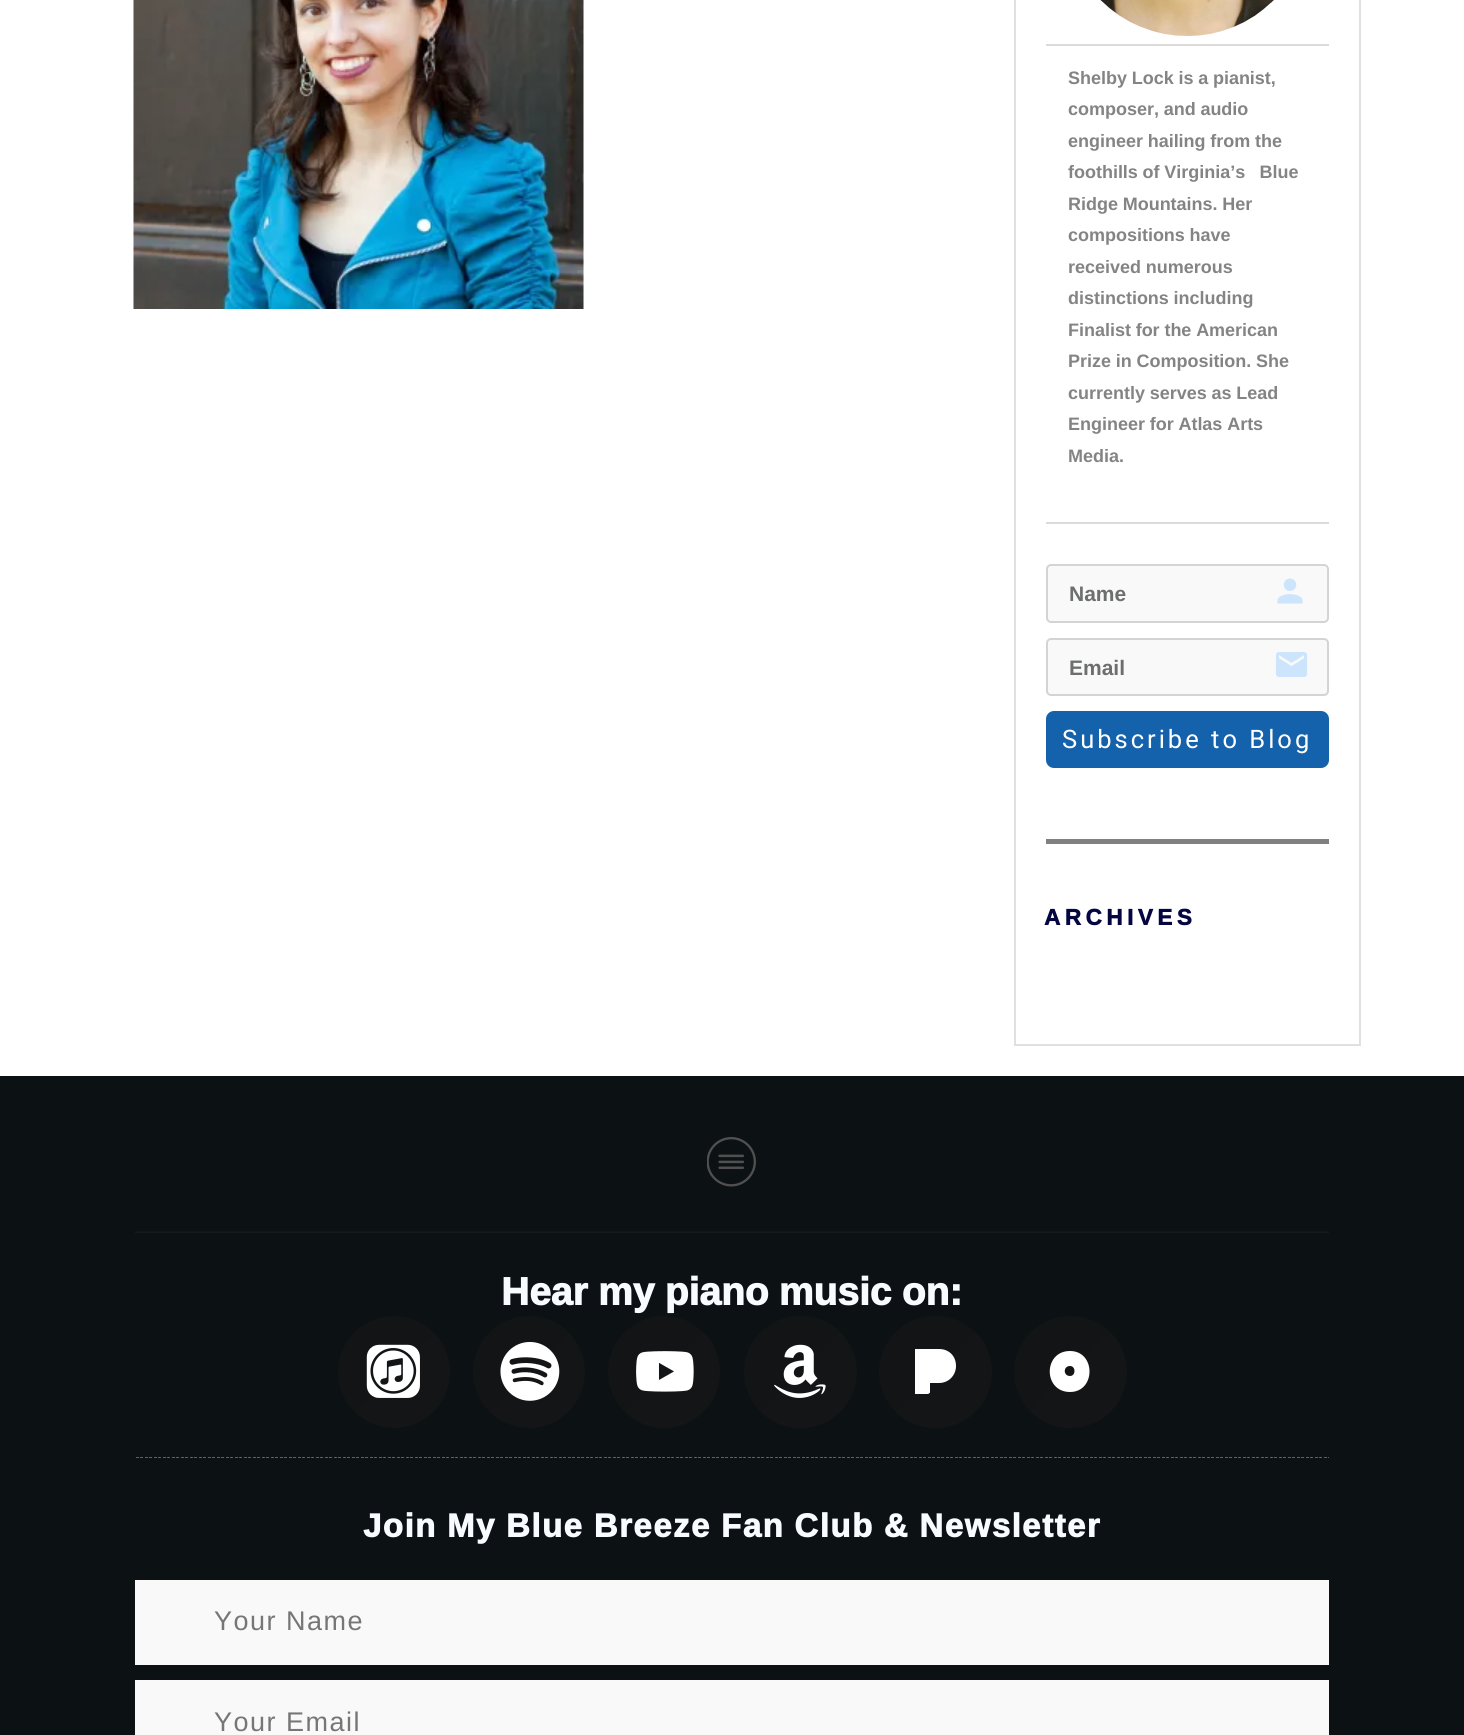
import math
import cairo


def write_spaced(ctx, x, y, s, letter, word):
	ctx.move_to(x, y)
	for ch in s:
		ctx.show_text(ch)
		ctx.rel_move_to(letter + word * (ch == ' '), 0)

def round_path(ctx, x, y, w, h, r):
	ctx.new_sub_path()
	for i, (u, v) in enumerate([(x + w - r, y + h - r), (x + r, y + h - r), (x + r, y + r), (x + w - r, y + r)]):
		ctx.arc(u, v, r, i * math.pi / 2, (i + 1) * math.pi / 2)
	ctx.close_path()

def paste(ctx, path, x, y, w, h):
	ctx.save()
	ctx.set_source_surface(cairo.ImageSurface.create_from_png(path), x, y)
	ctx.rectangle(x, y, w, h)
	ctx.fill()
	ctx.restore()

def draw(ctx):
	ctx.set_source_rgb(1, 1, 1)
	ctx.paint()
	paste(ctx, 'media/1.png', 133, 0, 451, 309)
	ctx.rectangle(1015, -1, 345, 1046)
	ctx.set_source_rgb(0.878, 0.878, 0.878)
	ctx.stroke()
	paste(ctx, 'media/2.png', 1100, 0, 174, 36)
	ctx.set_source_rgb(0.859, 0.859, 0.859)
	ctx.rectangle(1046, 44, 283, 2)
	ctx.fill()
	ctx.rectangle(1046, 522, 283, 2)
	ctx.fill()
	ctx.select_font_face('Ramabhadra')
	ctx.set_font_size(18)
	ctx.set_source_rgb(0.518, 0.518, 0.518)
	for x, y, s in [
		(1068, 84, 'Shelby Lock is a pianist,'),
		(1068, 115, 'composer, and audio'),
		(1068, 147, 'engineer hailing from the'),
		(1068, 178, 'foothills of Virginia’s   Blue'),
		(1068, 210, 'Ridge Mountains. Her'),
		(1068, 241, 'compositions have'),
		(1068, 273, 'received numerous'),
		(1068, 304, 'distinctions including'),
		(1068, 336, 'Finalist for the American'),
		(1068, 367, 'Prize in Composition. She'),
		(1068, 399, 'currently serves as Lead'),
		(1068, 430, 'Engineer for Atlas Arts'),
		(1068, 462, 'Media.'),
	]:
		ctx.move_to(x, y)
		ctx.show_text(s)
	ctx.set_source_rgb(0.973, 0.976, 0.98)
	round_path(ctx, 1047, 565, 281, 57, 4)
	ctx.fill_preserve()
	ctx.set_source_rgb(0.827, 0.831, 0.831)
	ctx.stroke()
	ctx.set_font_size(21)
	ctx.set_source_rgb(0.427, 0.431, 0.431)
	ctx.move_to(1069, 601)
	ctx.show_text('Name')
	paste(ctx, 'media/3.png', 1277, 578, 26, 26)
	ctx.set_source_rgb(0.973, 0.976, 0.98)
	round_path(ctx, 1047, 639, 281, 56, 4)
	ctx.fill_preserve()
	ctx.set_source_rgb(0.827, 0.831, 0.831)
	ctx.stroke()
	ctx.set_source_rgb(0.427, 0.431, 0.431)
	ctx.move_to(1069, 675)
	ctx.show_text('Email')
	paste(ctx, 'media/4.png', 1275, 652, 33, 25)
	ctx.set_source_rgb(0.082, 0.38, 0.675)
	round_path(ctx, 1046, 711, 283, 57, 8)
	ctx.fill()
	ctx.select_font_face('Roboto')
	ctx.set_font_size(25.5)
	ctx.set_source_rgb(1, 1, 1)
	write_spaced(ctx, 1062, 748, 'Subscribe to Blog', 3, 0)
	ctx.set_source_rgb(0.502, 0.502, 0.502)
	ctx.rectangle(1046, 839, 283, 5)
	ctx.fill()
	ctx.select_font_face('Ramabhadra', cairo.FONT_SLANT_NORMAL, cairo.FONT_WEIGHT_BOLD)
	ctx.set_font_size(22.5)
	ctx.set_source_rgb(0.02, 0.02, 0.255)
	write_spaced(ctx, 1044, 925, 'ARCHIVES', 4.5, 0)
	ctx.set_source_rgb(0.047, 0.067, 0.082)
	ctx.rectangle(0, 1076, 1464, 659)
	ctx.fill()
	paste(ctx, 'media/5.png', 707, 1137, 49, 50)
	paste(ctx, 'media/6.png', 135, 1231, 1194, 2)
	ctx.set_font_size(39)
	ctx.set_source_rgb(0.969, 0.984, 1)
	ctx.move_to(501, 1305)
	ctx.show_text('Hear my piano music on:')
	gradient = cairo.LinearGradient(338, 1316, 450, 1428)
	gradient.add_color_stop_rgba(0.5, 0.071, 0.078, 0.086, 1)
	gradient.add_color_stop_rgba(0.5, 0.078, 0.082, 0.086, 1)
	ctx.set_source(gradient)
	ctx.new_path()
	ctx.arc(394, 1372, 56, 0, 2 * math.pi)
	ctx.fill()
	paste(ctx, 'media/7.png', 366, 1344, 54, 54)
	gradient = cairo.LinearGradient(473, 1316, 585, 1428)
	gradient.add_color_stop_rgba(0.5, 0.071, 0.078, 0.086, 1)
	gradient.add_color_stop_rgba(0.5, 0.078, 0.082, 0.086, 1)
	ctx.set_source(gradient)
	ctx.arc(529, 1372, 56, 0, 2 * math.pi)
	ctx.fill()
	paste(ctx, 'media/8.png', 500, 1341, 60, 60)
	gradient = cairo.LinearGradient(608, 1316, 720, 1428)
	gradient.add_color_stop_rgba(0.5, 0.071, 0.078, 0.086, 1)
	gradient.add_color_stop_rgba(0.5, 0.078, 0.082, 0.086, 1)
	ctx.set_source(gradient)
	ctx.arc(664, 1372, 56, 0, 2 * math.pi)
	ctx.fill()
	paste(ctx, 'media/9.png', 636, 1351, 58, 41)
	gradient = cairo.LinearGradient(744, 1316, 857, 1428)
	gradient.add_color_stop_rgba(0.5, 0.071, 0.078, 0.086, 1)
	gradient.add_color_stop_rgba(0.5, 0.078, 0.082, 0.086, 1)
	ctx.set_source(gradient)
	round_path(ctx, 744, 1316, 113, 112, 56)
	ctx.fill()
	paste(ctx, 'media/10.png', 774, 1344, 52, 54)
	gradient = cairo.LinearGradient(879, 1316, 992, 1428)
	gradient.add_color_stop_rgba(0.5, 0.071, 0.078, 0.086, 1)
	gradient.add_color_stop_rgba(0.5, 0.078, 0.082, 0.086, 1)
	ctx.set_source(gradient)
	round_path(ctx, 879, 1316, 113, 112, 56)
	ctx.fill()
	ctx.set_source_rgb(1, 1, 1)
	ctx.new_path()
	ctx.move_to(930, 1392)
	ctx.curve_to(930, 1393, 929, 1394, 927, 1394)
	ctx.line_to(915, 1394)
	ctx.line_to(915, 1349)
	ctx.line_to(939, 1349)
	ctx.curve_to(949, 1349, 956, 1356, 956, 1366)
	ctx.curve_to(956, 1375, 949, 1383, 939, 1383)
	ctx.line_to(930, 1383)
	ctx.close_path()
	ctx.fill()
	gradient = cairo.LinearGradient(1014, 1316, 1127, 1428)
	gradient.add_color_stop_rgba(0.5, 0.071, 0.078, 0.086, 1)
	gradient.add_color_stop_rgba(0.5, 0.078, 0.082, 0.086, 1)
	ctx.set_source(gradient)
	round_path(ctx, 1014, 1316, 113, 112, 56)
	ctx.fill()
	ctx.set_source_rgb(1, 1, 1)
	ctx.new_path()
	ctx.move_to(1070, 1376)
	ctx.curve_to(1063, 1376, 1063, 1366, 1070, 1366)
	ctx.curve_to(1076, 1366, 1076, 1376, 1070, 1376)
	ctx.move_to(1070, 1351)
	ctx.curve_to(1043, 1351, 1043, 1392, 1070, 1392)
	ctx.curve_to(1096, 1392, 1096, 1351, 1070, 1351)
	ctx.close_path()
	ctx.fill()
	paste(ctx, 'media/11.png', 136, 1457, 1193, 1)
	ctx.set_font_size(33)
	ctx.set_source_rgb(0.969, 0.984, 1)
	write_spaced(ctx, 363, 1537, 'Join My Blue Breeze Fan Club & Newsletter', 1.5, 0)
	ctx.set_source_rgb(0.973, 0.973, 0.973)
	ctx.rectangle(135, 1580, 1194, 85)
	ctx.fill()
	ctx.select_font_face('Liberation Sans')
	ctx.set_font_size(27)
	ctx.set_source_rgb(0.463, 0.463, 0.463)
	write_spaced(ctx, 214, 1630, 'Your Name', 1.5, 0)
	ctx.set_source_rgb(0.973, 0.973, 0.973)
	ctx.rectangle(135, 1680, 1194, 55)
	ctx.fill()
	ctx.set_source_rgb(0.463, 0.463, 0.463)
	write_spaced(ctx, 214, 1731, 'Your Email', 1.5, 0)


surface = cairo.ImageSurface(cairo.FORMAT_RGB24, 1464, 1735)
ctx = cairo.Context(surface)
options = cairo.FontOptions()
options.set_hint_metrics(cairo.HINT_METRICS_OFF)
options.set_hint_style(cairo.HINT_STYLE_NONE)
ctx.set_font_options(options)
ctx.set_miter_limit(4)
draw(ctx)
surface.write_to_png('image.png')
